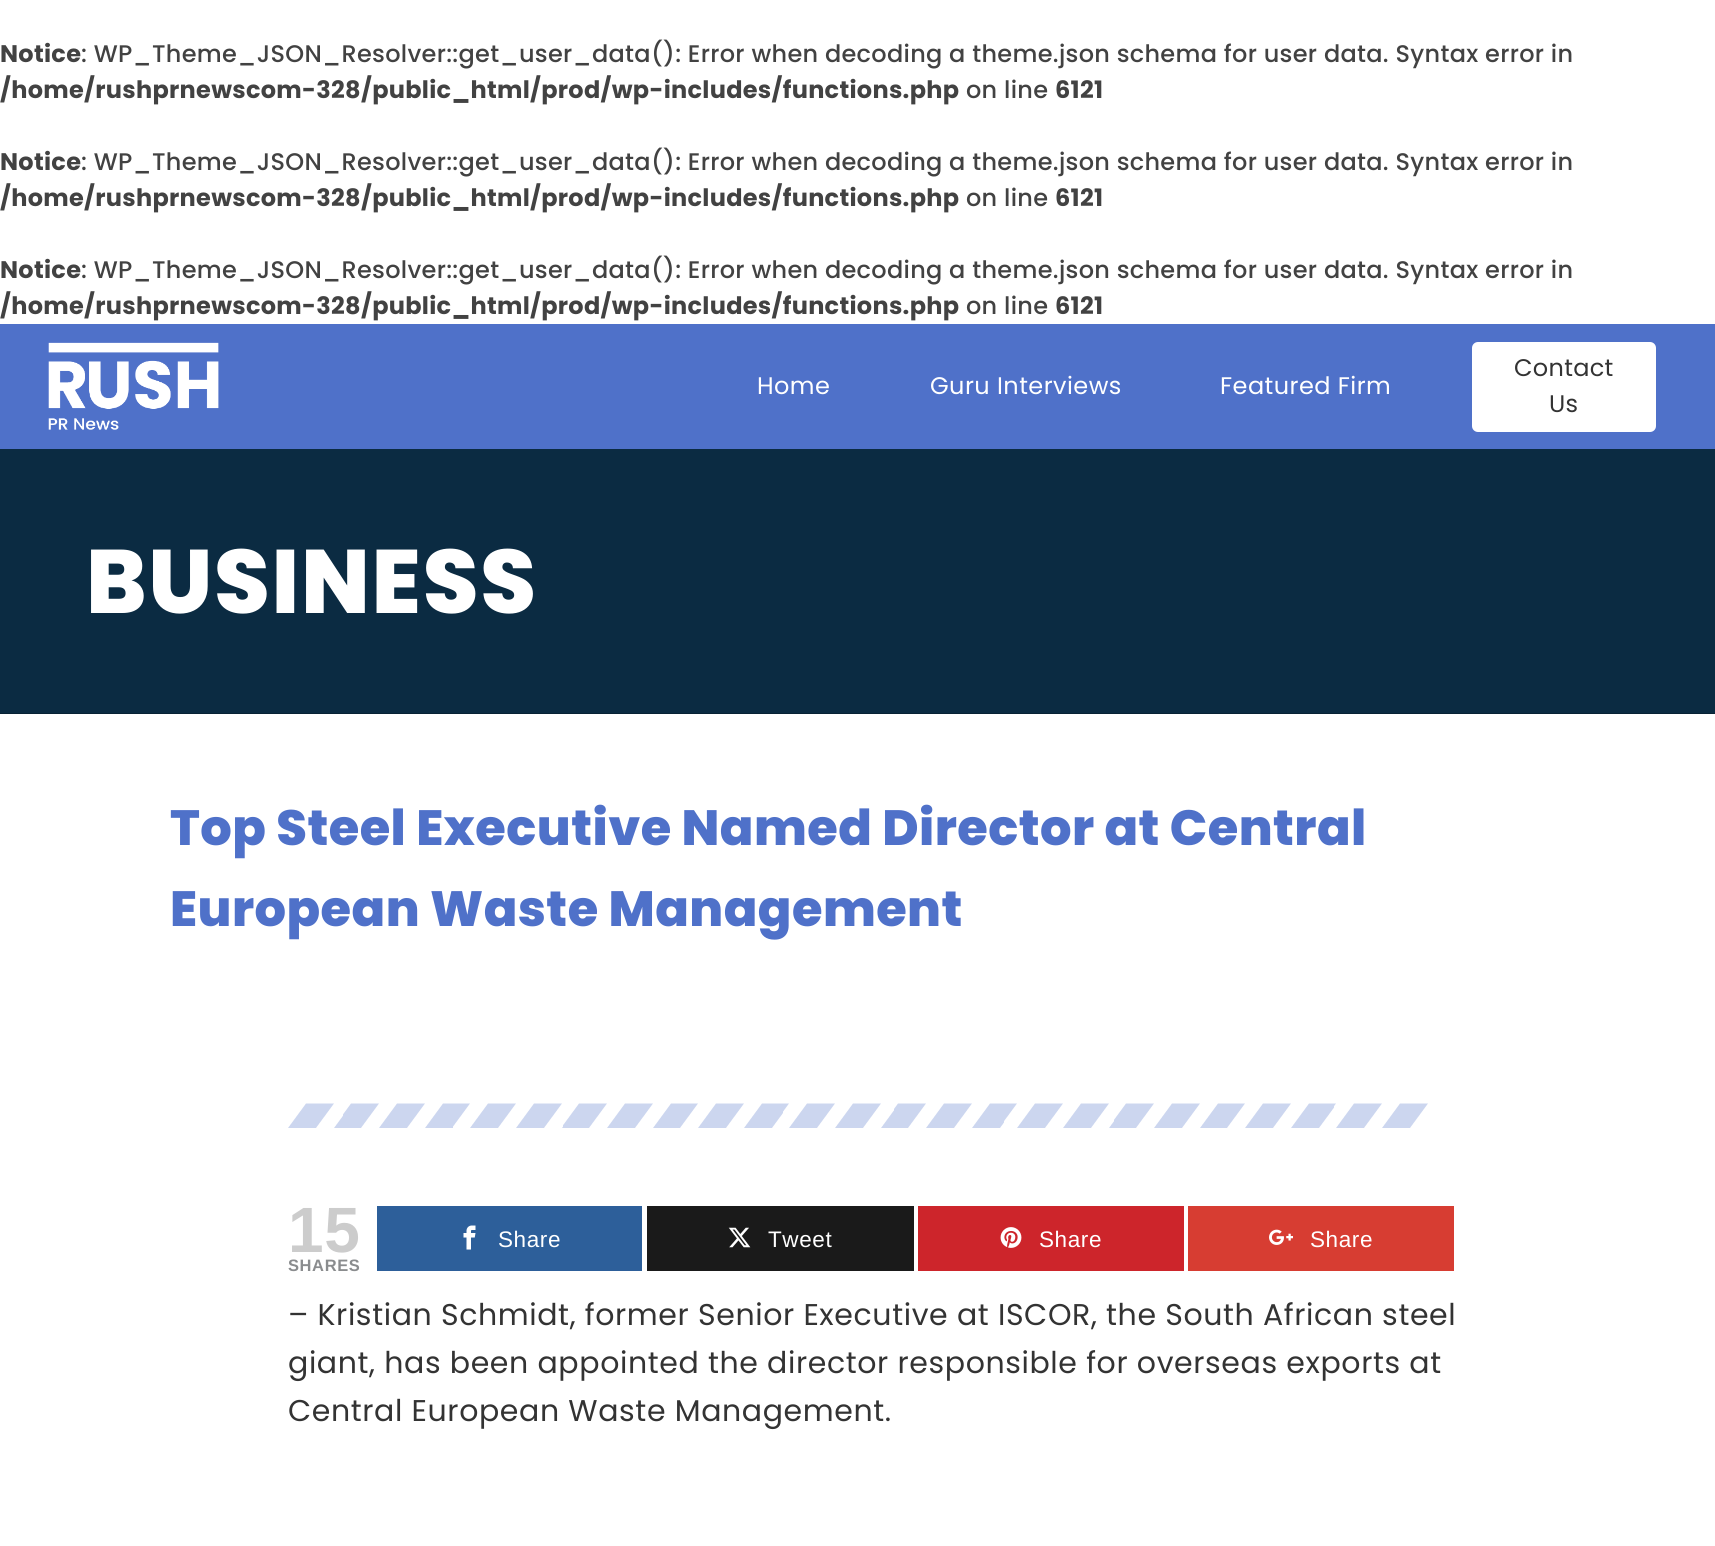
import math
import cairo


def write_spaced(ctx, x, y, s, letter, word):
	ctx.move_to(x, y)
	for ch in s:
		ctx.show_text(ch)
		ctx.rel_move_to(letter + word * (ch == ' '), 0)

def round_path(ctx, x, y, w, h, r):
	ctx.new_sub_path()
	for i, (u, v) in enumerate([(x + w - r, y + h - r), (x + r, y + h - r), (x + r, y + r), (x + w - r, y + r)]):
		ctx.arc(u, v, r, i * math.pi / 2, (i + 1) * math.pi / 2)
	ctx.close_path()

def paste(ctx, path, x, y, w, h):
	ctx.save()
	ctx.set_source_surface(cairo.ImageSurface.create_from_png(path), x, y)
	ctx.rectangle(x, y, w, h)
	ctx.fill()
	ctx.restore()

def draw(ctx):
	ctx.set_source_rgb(1, 1, 1)
	ctx.paint()
	ctx.select_font_face('Poppins', cairo.FONT_SLANT_NORMAL, cairo.FONT_WEIGHT_BOLD)
	ctx.set_font_size(24)
	ctx.set_source_rgb(0.259, 0.259, 0.259)
	write_spaced(ctx, 0, 62, 'Notice', 0.3, 0)
	ctx.select_font_face('Poppins Medium')
	write_spaced(ctx, 81, 62, ': WP_Theme_JSON_Resolver::get_user_data(): Error when decoding a theme.json schema for user data. Syntax error in', 0.3, 0)
	ctx.select_font_face('Poppins', cairo.FONT_SLANT_NORMAL, cairo.FONT_WEIGHT_BOLD)
	write_spaced(ctx, 0, 98, '/home/rushprnewscom-328/public_html/prod/wp-includes/functions.php', 0.3, 0)
	ctx.select_font_face('Poppins Medium')
	write_spaced(ctx, 966, 98, 'on line', 0.3, 0)
	ctx.select_font_face('Poppins', cairo.FONT_SLANT_NORMAL, cairo.FONT_WEIGHT_BOLD)
	write_spaced(ctx, 1055, 98, '6121', 0.3, 0)
	write_spaced(ctx, 0, 170, 'Notice', 0.3, 0)
	ctx.select_font_face('Poppins Medium')
	write_spaced(ctx, 81, 170, ': WP_Theme_JSON_Resolver::get_user_data(): Error when decoding a theme.json schema for user data. Syntax error in', 0.3, 0)
	ctx.select_font_face('Poppins', cairo.FONT_SLANT_NORMAL, cairo.FONT_WEIGHT_BOLD)
	write_spaced(ctx, 0, 206, '/home/rushprnewscom-328/public_html/prod/wp-includes/functions.php', 0.3, 0)
	ctx.select_font_face('Poppins Medium')
	write_spaced(ctx, 966, 206, 'on line', 0.3, 0)
	ctx.select_font_face('Poppins', cairo.FONT_SLANT_NORMAL, cairo.FONT_WEIGHT_BOLD)
	write_spaced(ctx, 1055, 206, '6121', 0.3, 0)
	write_spaced(ctx, 0, 278, 'Notice', 0.3, 0)
	ctx.select_font_face('Poppins Medium')
	write_spaced(ctx, 81, 278, ': WP_Theme_JSON_Resolver::get_user_data(): Error when decoding a theme.json schema for user data. Syntax error in', 0.3, 0)
	ctx.select_font_face('Poppins', cairo.FONT_SLANT_NORMAL, cairo.FONT_WEIGHT_BOLD)
	write_spaced(ctx, 0, 314, '/home/rushprnewscom-328/public_html/prod/wp-includes/functions.php', 0.3, 0)
	ctx.select_font_face('Poppins Medium')
	write_spaced(ctx, 966, 314, 'on line', 0.3, 0)
	ctx.select_font_face('Poppins', cairo.FONT_SLANT_NORMAL, cairo.FONT_WEIGHT_BOLD)
	write_spaced(ctx, 1055, 314, '6121', 0.3, 0)
	ctx.set_source_rgb(0.31, 0.443, 0.788)
	ctx.rectangle(0, 324, 1715, 125)
	ctx.fill()
	paste(ctx, 'media/1.png', 48, 342, 171, 88)
	ctx.select_font_face('Poppins')
	ctx.set_source_rgb(1, 1, 1)
	for x, y, s in [
		(757, 394, 'Home'),
		(930, 394, 'Guru Interviews'),
		(1220, 394, 'Featured Firm'),
	]:
		write_spaced(ctx, x, y, s, 0.45, 0)
	round_path(ctx, 1472, 342, 184, 90, 6)
	ctx.fill()
	ctx.set_source_rgb(0.2, 0.2, 0.2)
	write_spaced(ctx, 1514, 376, 'Contact', 0.3, 0)
	write_spaced(ctx, 1549, 412, 'Us', 0.3, 0)
	ctx.set_source_rgb(0.043, 0.169, 0.259)
	ctx.rectangle(0, 449, 1715, 264)
	ctx.fill()
	ctx.set_source_rgb(0.035, 0.133, 0.204)
	ctx.rectangle(0, 713, 1715, 1)
	ctx.fill()
	ctx.select_font_face('Poppins ExtraBold')
	ctx.set_font_size(90)
	ctx.set_source_rgb(1, 1, 1)
	write_spaced(ctx, 86, 613, 'BUSINESS', 1.75, 0)
	ctx.set_font_size(49.5)
	ctx.set_source_rgb(0.31, 0.443, 0.788)
	write_spaced(ctx, 170, 845, 'Top Steel Executive Named Director at Central', 0.45, 0)
	write_spaced(ctx, 170, 926, 'European Waste Management', 0.45, 0)
	paste(ctx, 'media/2.png', 288, 1103, 1140, 25)
	ctx.select_font_face('Liberation Sans', cairo.FONT_SLANT_NORMAL, cairo.FONT_WEIGHT_BOLD)
	ctx.set_font_size(64)
	ctx.set_source_rgb(0.8, 0.8, 0.8)
	write_spaced(ctx, 288, 1252, '15', 0.6, 0)
	ctx.set_font_size(16.5)
	ctx.set_source_rgb(0.541, 0.549, 0.557)
	write_spaced(ctx, 288, 1271, 'SHARES', 0.6, 0)
	ctx.set_source_rgb(0.176, 0.373, 0.604)
	ctx.rectangle(377, 1206, 265, 65)
	ctx.fill()
	paste(ctx, 'media/3.png', 463, 1225, 13, 25)
	ctx.select_font_face('Liberation Sans')
	ctx.set_font_size(22.5)
	ctx.set_source_rgb(1, 1, 1)
	write_spaced(ctx, 498, 1247, 'Share', 0.6, 0)
	ctx.set_source_rgb(0.102, 0.102, 0.102)
	ctx.rectangle(647, 1206, 267, 65)
	ctx.fill()
	paste(ctx, 'media/4.png', 728, 1227, 23, 21)
	ctx.set_source_rgb(1, 1, 1)
	write_spaced(ctx, 768, 1247, 'Tweet', 0.6, 0)
	ctx.set_source_rgb(0.804, 0.145, 0.169)
	ctx.rectangle(918, 1206, 266, 65)
	ctx.fill()
	paste(ctx, 'media/5.png', 1000, 1227, 22, 21)
	ctx.set_source_rgb(1, 1, 1)
	write_spaced(ctx, 1039, 1247, 'Share', 0.6, 0)
	ctx.set_source_rgb(0.843, 0.239, 0.196)
	ctx.rectangle(1188, 1206, 266, 65)
	ctx.fill()
	paste(ctx, 'media/6.png', 1269, 1229, 24, 16)
	ctx.set_source_rgb(1, 1, 1)
	write_spaced(ctx, 1310, 1247, 'Share', 0.6, 0)
	ctx.select_font_face('Poppins')
	ctx.set_font_size(30)
	ctx.set_source_rgb(0.2, 0.2, 0.2)
	for x, y, s in [
		(288, 1325, '– Kristian Schmidt, former Senior Executive at ISCOR, the South African steel'),
		(288, 1373, 'giant, has been appointed the director responsible for overseas exports at'),
		(288, 1421, 'Central European Waste Management.'),
	]:
		write_spaced(ctx, x, y, s, 0.6, 0)


surface = cairo.ImageSurface(cairo.FORMAT_RGB24, 1715, 1546)
ctx = cairo.Context(surface)
options = cairo.FontOptions()
options.set_hint_metrics(cairo.HINT_METRICS_OFF)
options.set_hint_style(cairo.HINT_STYLE_NONE)
ctx.set_font_options(options)
ctx.set_miter_limit(4)
draw(ctx)
surface.write_to_png('image.png')
